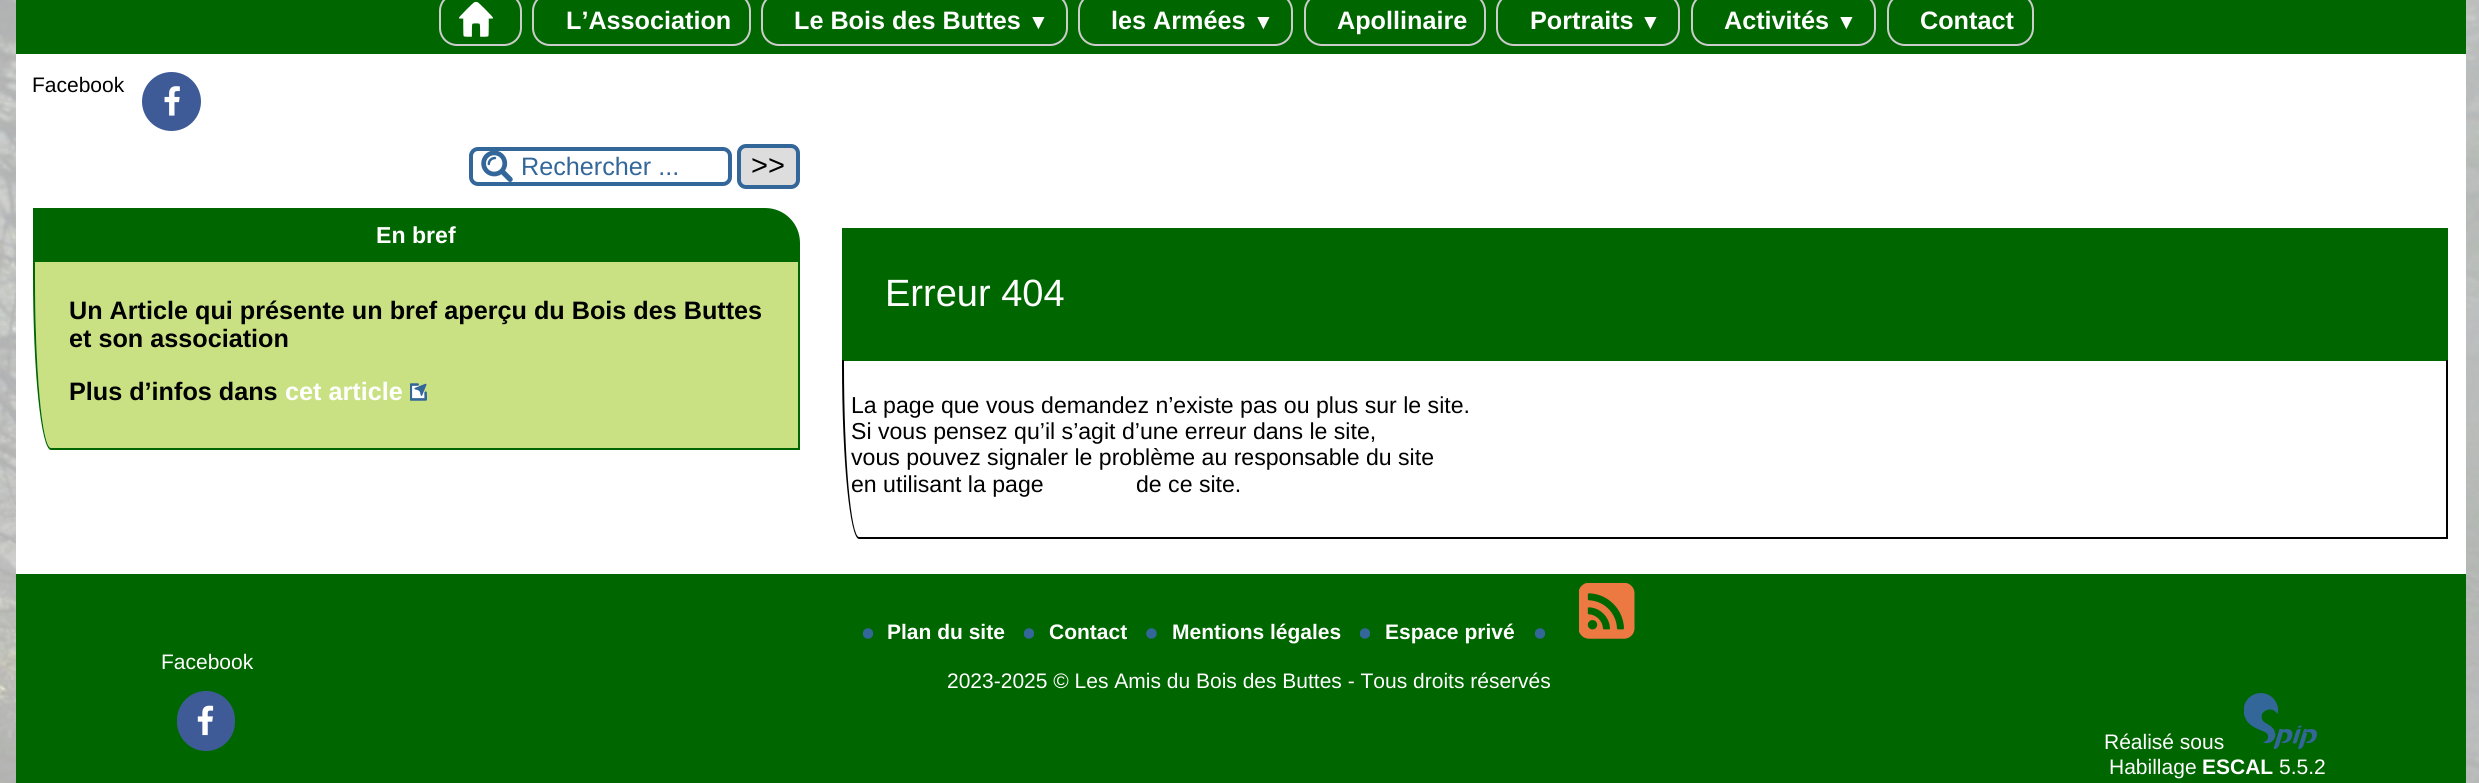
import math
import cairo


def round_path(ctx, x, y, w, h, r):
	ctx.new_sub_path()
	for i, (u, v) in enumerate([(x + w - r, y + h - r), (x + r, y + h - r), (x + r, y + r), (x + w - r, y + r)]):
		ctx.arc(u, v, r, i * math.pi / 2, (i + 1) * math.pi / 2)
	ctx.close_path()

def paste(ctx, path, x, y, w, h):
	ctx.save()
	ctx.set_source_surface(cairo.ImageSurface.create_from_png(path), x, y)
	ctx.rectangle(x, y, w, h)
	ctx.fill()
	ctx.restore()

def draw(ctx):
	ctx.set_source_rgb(1, 1, 1)
	ctx.paint()
	paste(ctx, 'media/1.png', 0, 0, 2479, 783)
	ctx.set_source_rgb(1, 1, 1)
	ctx.rectangle(16, 54, 2450, 520)
	ctx.fill()
	ctx.set_source_rgb(0, 0.4, 0)
	ctx.rectangle(16, 0, 2450, 54)
	ctx.fill()
	round_path(ctx, 440, -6, 81, 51, 17)
	ctx.set_source_rgb(0.8, 0.8, 0.8)
	ctx.stroke()
	paste(ctx, 'media/2.png', 459, 2, 34, 35)
	round_path(ctx, 533, -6, 217, 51, 17)
	ctx.stroke()
	ctx.select_font_face('Liberation Sans', cairo.FONT_SLANT_NORMAL, cairo.FONT_WEIGHT_BOLD)
	ctx.set_font_size(25.2)
	ctx.set_source_rgb(1, 1, 1)
	ctx.move_to(566, 29)
	ctx.show_text('L’Association')
	round_path(ctx, 762, -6, 305, 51, 17)
	ctx.set_source_rgb(0.8, 0.8, 0.8)
	ctx.stroke()
	ctx.set_source_rgb(1, 1, 1)
	ctx.move_to(794, 29)
	ctx.show_text('Le Bois des Buttes')
	ctx.set_font_size(21)
	ctx.move_to(1028, 29)
	ctx.show_text('▼')
	round_path(ctx, 1079, -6, 213, 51, 17)
	ctx.set_source_rgb(0.8, 0.8, 0.8)
	ctx.stroke()
	ctx.set_font_size(25.2)
	ctx.set_source_rgb(1, 1, 1)
	ctx.move_to(1111, 29)
	ctx.show_text('les Armées')
	ctx.set_font_size(21)
	ctx.move_to(1253, 29)
	ctx.show_text('▼')
	round_path(ctx, 1305, -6, 180, 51, 17)
	ctx.set_source_rgb(0.8, 0.8, 0.8)
	ctx.stroke()
	ctx.set_font_size(25.2)
	ctx.set_source_rgb(1, 1, 1)
	ctx.move_to(1337, 29)
	ctx.show_text('Apollinaire')
	round_path(ctx, 1497, -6, 182, 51, 17)
	ctx.set_source_rgb(0.8, 0.8, 0.8)
	ctx.stroke()
	ctx.set_source_rgb(1, 1, 1)
	ctx.move_to(1530, 29)
	ctx.show_text('Portraits')
	ctx.set_font_size(21)
	ctx.move_to(1640, 29)
	ctx.show_text('▼')
	round_path(ctx, 1692, -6, 183, 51, 17)
	ctx.set_source_rgb(0.8, 0.8, 0.8)
	ctx.stroke()
	ctx.set_font_size(25.2)
	ctx.set_source_rgb(1, 1, 1)
	ctx.move_to(1724, 29)
	ctx.show_text('Activités')
	ctx.set_font_size(21)
	ctx.move_to(1836, 29)
	ctx.show_text('▼')
	round_path(ctx, 1888, -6, 145, 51, 17)
	ctx.set_source_rgb(0.8, 0.8, 0.8)
	ctx.stroke()
	ctx.set_font_size(25.2)
	ctx.set_source_rgb(1, 1, 1)
	ctx.move_to(1920, 29)
	ctx.show_text('Contact')
	ctx.select_font_face('Liberation Sans')
	ctx.set_font_size(21)
	ctx.set_source_rgb(0, 0, 0)
	ctx.move_to(32, 92)
	ctx.show_text('Facebook')
	ctx.set_source_rgb(0.243, 0.357, 0.596)
	ctx.new_path()
	ctx.arc(171.5, 101.5, 29.5, 0, 2 * math.pi)
	ctx.fill()
	paste(ctx, 'media/3.png', 164, 86, 16, 30)
	paste(ctx, 'media/4.png', 481, 151, 32, 31)
	round_path(ctx, 471, 149, 259, 35, 7)
	ctx.set_source_rgb(0.2, 0.4, 0.6)
	ctx.set_line_width(4)
	ctx.stroke()
	ctx.set_font_size(25.2)
	ctx.move_to(521, 175)
	ctx.show_text('Rechercher ...')
	ctx.set_source_rgb(0.867, 0.867, 0.867)
	round_path(ctx, 739, 146, 59, 41, 7)
	ctx.fill_preserve()
	ctx.set_source_rgb(0.2, 0.4, 0.6)
	ctx.stroke()
	ctx.set_font_size(29)
	ctx.set_source_rgb(0, 0, 0)
	ctx.move_to(751, 175)
	ctx.show_text('>>')
	ctx.set_source_rgb(0, 0.4, 0)
	ctx.new_path()
	ctx.move_to(33, 208)
	ctx.line_to(765, 208)
	ctx.curve_to(784.5, 208, 800, 223.5, 800, 243)
	ctx.line_to(800, 263)
	ctx.line_to(33, 263)
	ctx.close_path()
	ctx.fill()
	ctx.select_font_face('Liberation Sans', cairo.FONT_SLANT_NORMAL, cairo.FONT_WEIGHT_BOLD)
	ctx.set_font_size(23.1)
	ctx.set_source_rgb(1, 1, 1)
	ctx.move_to(376, 243)
	ctx.show_text('En bref')
	ctx.set_source_rgb(0.788, 0.882, 0.514)
	ctx.new_path()
	ctx.move_to(35, 262)
	ctx.line_to(798, 262)
	ctx.line_to(798, 448)
	ctx.line_to(51, 448)
	ctx.curve_to(42, 448, 35, 370, 35, 275)
	ctx.close_path()
	ctx.fill()
	ctx.set_source_rgb(0, 0.4, 0)
	ctx.set_fill_rule(cairo.FILL_RULE_EVEN_ODD)
	ctx.new_path()
	ctx.move_to(33, 262)
	ctx.line_to(800, 262)
	ctx.line_to(800, 450)
	ctx.line_to(51, 450)
	ctx.curve_to(41, 450, 33, 371, 33, 275)
	ctx.close_path()
	ctx.move_to(35, 262)
	ctx.line_to(798, 262)
	ctx.line_to(798, 448)
	ctx.line_to(51, 448)
	ctx.curve_to(42, 448, 35, 370, 35, 275)
	ctx.close_path()
	ctx.fill()
	ctx.set_font_size(25.2)
	ctx.set_source_rgb(0, 0, 0)
	for x, y, s in [
		(69, 319, 'Un Article qui présente un bref aperçu du Bois des Buttes'),
		(69, 347, 'et son association'),
		(69, 400, 'Plus d’infos dans'),
	]:
		ctx.move_to(x, y)
		ctx.show_text(s)
	ctx.set_source_rgb(1, 1, 1)
	ctx.move_to(285, 400)
	ctx.show_text('cet article')
	paste(ctx, 'media/5.png', 410, 383, 17, 18)
	ctx.set_source_rgb(0, 0.4, 0)
	ctx.rectangle(842, 228, 1606, 133)
	ctx.fill()
	ctx.select_font_face('Liberation Sans')
	ctx.set_font_size(38)
	ctx.set_source_rgb(1, 1, 1)
	ctx.move_to(885, 306)
	ctx.show_text('Erreur 404')
	ctx.set_source_rgb(0, 0, 0)
	ctx.new_path()
	ctx.move_to(842, 360)
	ctx.line_to(2448, 360)
	ctx.line_to(2448, 539)
	ctx.line_to(859, 539)
	ctx.curve_to(850, 539, 842, 461, 842, 364)
	ctx.close_path()
	ctx.move_to(844, 360)
	ctx.line_to(2446, 360)
	ctx.line_to(2446, 537)
	ctx.line_to(859, 537)
	ctx.curve_to(851, 537, 844, 460, 844, 364)
	ctx.close_path()
	ctx.fill()
	ctx.set_font_size(23.1)
	for x, y, s in [
		(851, 413, 'La page que vous demandez n’existe pas ou plus sur le site.'),
		(851, 439, 'Si vous pensez qu’il s’agit d’une erreur dans le site,'),
		(851, 465, 'vous pouvez signaler le problème au responsable du site'),
		(851, 492, 'en utilisant la page'),
		(1136, 492, 'de ce site.'),
	]:
		ctx.move_to(x, y)
		ctx.show_text(s)
	ctx.set_source_rgb(0, 0.4, 0)
	ctx.rectangle(16, 574, 2450, 209)
	ctx.fill()
	ctx.set_font_size(21)
	ctx.set_source_rgb(1, 1, 1)
	ctx.move_to(161, 669)
	ctx.show_text('Facebook')
	ctx.set_source_rgb(0.243, 0.357, 0.596)
	round_path(ctx, 177, 691, 58, 60, 29)
	ctx.fill()
	paste(ctx, 'media/6.png', 197, 705, 17, 31)
	paste(ctx, 'media/7.png', 863, 628, 10, 11)
	ctx.select_font_face('Liberation Sans', cairo.FONT_SLANT_NORMAL, cairo.FONT_WEIGHT_BOLD)
	ctx.set_source_rgb(1, 1, 1)
	ctx.move_to(887, 639)
	ctx.show_text('Plan du site')
	paste(ctx, 'media/7.png', 1024, 628, 10, 11)
	ctx.move_to(1049, 639)
	ctx.show_text('Contact')
	paste(ctx, 'media/8.png', 1146, 628, 11, 11)
	ctx.move_to(1172, 639)
	ctx.show_text('Mentions légales')
	paste(ctx, 'media/7.png', 1360, 628, 10, 11)
	ctx.move_to(1385, 639)
	ctx.show_text('Espace privé')
	paste(ctx, 'media/7.png', 1535, 628, 10, 11)
	paste(ctx, 'media/9.png', 1579, 583, 56, 56)
	ctx.select_font_face('Liberation Sans')
	ctx.move_to(947, 688)
	ctx.show_text('2023-2025 © Les Amis du Bois des Buttes - Tous droits réservés')
	ctx.move_to(2104, 749)
	ctx.show_text('Réalisé sous')
	paste(ctx, 'media/10.png', 2244, 693, 73, 56)
	ctx.move_to(2109, 774)
	ctx.show_text('Habillage')
	ctx.select_font_face('Liberation Sans', cairo.FONT_SLANT_NORMAL, cairo.FONT_WEIGHT_BOLD)
	ctx.move_to(2202, 774)
	ctx.show_text('ESCAL')
	ctx.select_font_face('Liberation Sans')
	ctx.move_to(2279, 774)
	ctx.show_text('5.5.2')


surface = cairo.ImageSurface(cairo.FORMAT_RGB24, 2479, 783)
ctx = cairo.Context(surface)
options = cairo.FontOptions()
options.set_hint_metrics(cairo.HINT_METRICS_OFF)
options.set_hint_style(cairo.HINT_STYLE_NONE)
ctx.set_font_options(options)
ctx.set_miter_limit(4)
draw(ctx)
surface.write_to_png('image.png')
